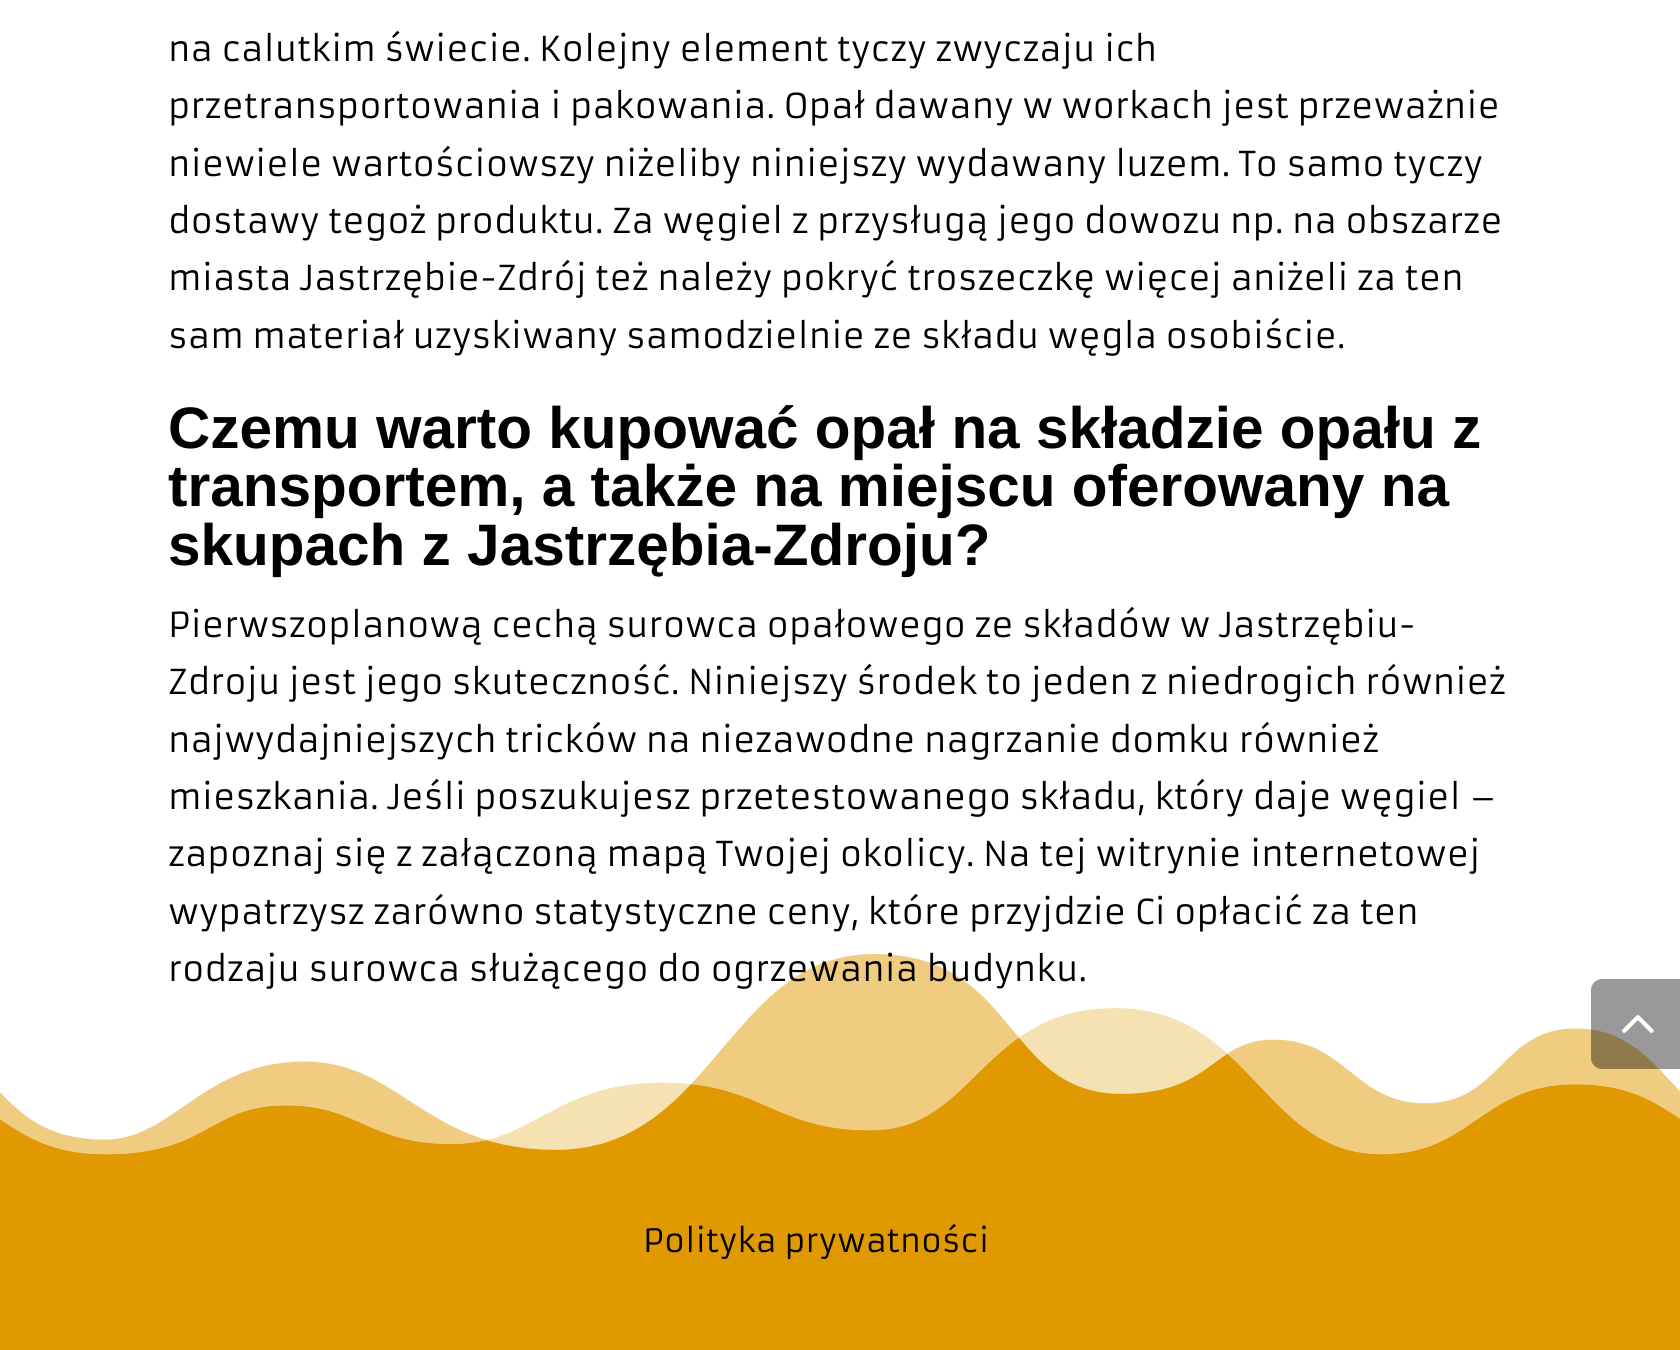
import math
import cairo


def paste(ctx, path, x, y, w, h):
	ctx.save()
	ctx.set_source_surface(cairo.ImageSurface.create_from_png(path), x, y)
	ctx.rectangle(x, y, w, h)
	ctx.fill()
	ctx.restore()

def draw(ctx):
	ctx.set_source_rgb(0.878, 0.6, 0)
	ctx.paint()
	ctx.set_source_rgb(1, 1, 1)
	ctx.rectangle(0, 0, 1680, 1155)
	ctx.fill()
	ctx.select_font_face('Armata')
	ctx.set_font_size(33.75)
	ctx.set_source_rgb(0, 0, 0)
	for x, y, s in [
		(168, 61, 'na calutkim świecie. Kolejny element tyczy zwyczaju ich'),
		(168, 118, 'przetransportowania i pakowania. Opał dawany w workach jest przeważnie'),
		(168, 176, 'niewiele wartościowszy niżeliby niniejszy wydawany luzem. To samo tyczy'),
		(168, 233, 'dostawy tegoż produktu. Za węgiel z przysługą jego dowozu np. na obszarze'),
		(168, 290, 'miasta Jastrzębie-Zdrój też należy pokryć troszeczkę więcej aniżeli za ten'),
		(168, 348, 'sam materiał uzyskiwany samodzielnie ze składu węgla osobiście.'),
	]:
		ctx.move_to(x, y)
		ctx.show_text(s)
	ctx.select_font_face('Liberation Sans', cairo.FONT_SLANT_NORMAL, cairo.FONT_WEIGHT_BOLD)
	ctx.set_font_size(58.5)
	for x, y, s in [
		(168, 448, 'Czemu warto kupować opał na składzie opału z'),
		(168, 506, 'transportem, a także na miejscu oferowany na'),
		(168, 565, 'skupach z Jastrzębia-Zdroju?'),
	]:
		ctx.move_to(x, y)
		ctx.show_text(s)
	ctx.select_font_face('Armata')
	ctx.set_font_size(33.75)
	for x, y, s in [
		(168, 637, 'Pierwszoplanową cechą surowca opałowego ze składów w Jastrzębiu-'),
		(168, 694, 'Zdroju jest jego skuteczność. Niniejszy środek to jeden z niedrogich również'),
		(168, 752, 'najwydajniejszych tricków na niezawodne nagrzanie domku również'),
		(168, 809, 'mieszkania. Jeśli poszukujesz przetestowanego składu, który daje węgiel –'),
		(168, 866, 'zapoznaj się z załączoną mapą Twojej okolicy. Na tej witrynie internetowej'),
		(168, 924, 'wypatrzysz zarówno statystyczne ceny, które przyjdzie Ci opłacić za ten'),
	]:
		ctx.move_to(x, y)
		ctx.show_text(s)
	paste(ctx, 'media/1.png', 0, 954, 1680, 225)
	ctx.move_to(168, 981)
	ctx.show_text('rodzaju surowca służącego do ogrzewania budynku.')
	ctx.set_source_rgba(0, 0, 0, 0.4)
	ctx.new_path()
	ctx.move_to(1602, 979)
	ctx.line_to(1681, 979)
	ctx.line_to(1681, 1069)
	ctx.line_to(1602, 1069)
	ctx.curve_to(1596, 1069, 1591, 1064, 1591, 1058)
	ctx.line_to(1591, 990)
	ctx.curve_to(1591, 984, 1596, 979, 1602, 979)
	ctx.close_path()
	ctx.fill()
	paste(ctx, 'media/2.png', 1622, 1015, 32, 18)
	ctx.set_font_size(31.5)
	ctx.set_source_rgb(0, 0, 0)
	ctx.move_to(643, 1252)
	ctx.show_text('Polityka prywatności')


surface = cairo.ImageSurface(cairo.FORMAT_RGB24, 1680, 1350)
ctx = cairo.Context(surface)
options = cairo.FontOptions()
options.set_hint_metrics(cairo.HINT_METRICS_OFF)
options.set_hint_style(cairo.HINT_STYLE_NONE)
ctx.set_font_options(options)
ctx.set_miter_limit(4)
draw(ctx)
surface.write_to_png('image.png')
